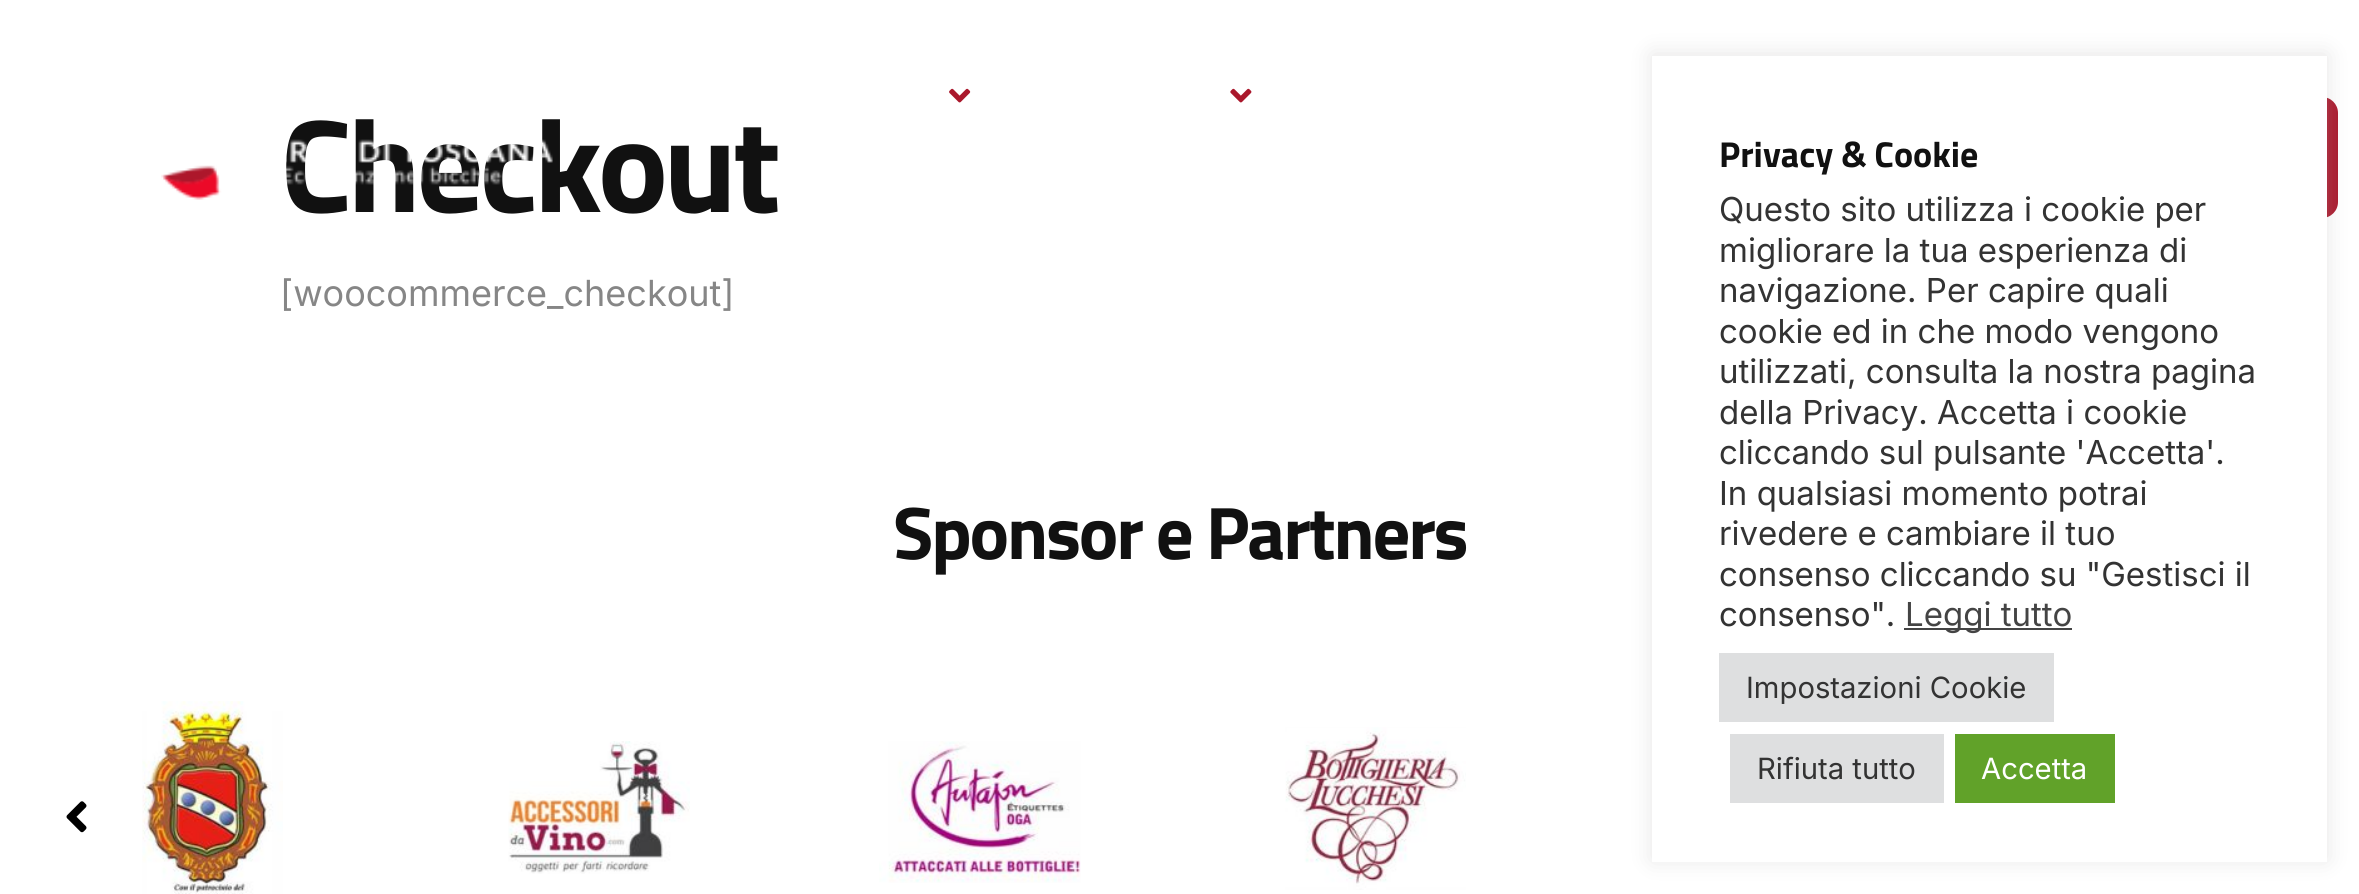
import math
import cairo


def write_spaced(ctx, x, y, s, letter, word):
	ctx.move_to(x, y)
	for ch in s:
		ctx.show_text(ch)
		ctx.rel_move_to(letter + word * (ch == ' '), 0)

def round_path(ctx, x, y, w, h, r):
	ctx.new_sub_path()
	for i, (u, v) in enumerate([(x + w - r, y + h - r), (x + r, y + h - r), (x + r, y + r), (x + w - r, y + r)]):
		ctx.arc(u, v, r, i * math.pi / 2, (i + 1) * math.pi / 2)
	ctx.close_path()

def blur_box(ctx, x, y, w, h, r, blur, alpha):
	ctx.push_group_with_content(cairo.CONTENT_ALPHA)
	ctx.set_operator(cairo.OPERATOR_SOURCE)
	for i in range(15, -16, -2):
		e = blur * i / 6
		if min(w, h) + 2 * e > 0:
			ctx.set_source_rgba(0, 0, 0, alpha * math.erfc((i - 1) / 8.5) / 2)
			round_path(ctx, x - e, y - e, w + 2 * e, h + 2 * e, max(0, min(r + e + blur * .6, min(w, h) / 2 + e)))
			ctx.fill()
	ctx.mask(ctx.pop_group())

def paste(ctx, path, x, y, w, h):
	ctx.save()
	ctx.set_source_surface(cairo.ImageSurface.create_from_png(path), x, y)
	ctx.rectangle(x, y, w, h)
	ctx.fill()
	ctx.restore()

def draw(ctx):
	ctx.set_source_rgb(1, 1, 1)
	ctx.paint()
	paste(ctx, 'media/1.png', 949, 88, 22, 15)
	paste(ctx, 'media/2.png', 1230, 88, 22, 15)
	ctx.select_font_face('Titillium Web', cairo.FONT_SLANT_NORMAL, cairo.FONT_WEIGHT_BOLD)
	ctx.set_font_size(132.5)
	ctx.set_source_rgb(0.067, 0.067, 0.067)
	write_spaced(ctx, 280, 212, 'Checkout', -4.5, 0)
	paste(ctx, 'media/3.png', 161, 139, 392, 61)
	ctx.set_source_rgb(0.667, 0.094, 0.173)
	round_path(ctx, 2030, 97, 308, 121, 16)
	ctx.fill()
	ctx.select_font_face('Inter')
	ctx.set_font_size(36)
	ctx.set_source_rgb(0.525, 0.525, 0.525)
	ctx.move_to(280, 306)
	ctx.show_text('[woocommerce_checkout]')
	ctx.select_font_face('Titillium Web', cairo.FONT_SLANT_NORMAL, cairo.FONT_WEIGHT_BOLD)
	ctx.set_font_size(74.5)
	ctx.set_source_rgb(0.067, 0.067, 0.067)
	write_spaced(ctx, 893, 559, 'Sponsor e Partners', -2.25, 0)
	paste(ctx, 'media/4.png', 66, 801, 21, 32)
	paste(ctx, 'media/5.png', 142, 701, 141, 193)
	paste(ctx, 'media/6.png', 508, 741, 182, 133)
	paste(ctx, 'media/7.png', 879, 741, 202, 142)
	paste(ctx, 'media/8.png', 1285, 727, 181, 163)
	ctx.set_source_rgb(0.675, 0.671, 0.671)
	blur_box(ctx, 1652, 54, 675, 806, 0, 11, 0.3)
	ctx.set_source_rgb(1, 1, 1)
	ctx.rectangle(1652, 56, 675, 806)
	ctx.fill()
	ctx.set_font_size(36)
	ctx.set_source_rgb(0.067, 0.067, 0.067)
	ctx.move_to(1719, 167)
	ctx.show_text('Privacy & Cookie')
	ctx.select_font_face('Inter')
	ctx.set_font_size(33)
	ctx.set_source_rgb(0.2, 0.2, 0.2)
	for x, y, s in [
		(1719, 221, 'Questo sito utilizza i cookie per'),
		(1719, 262, 'migliorare la tua esperienza di'),
		(1719, 302, 'navigazione. Per capire quali'),
		(1719, 343, 'cookie ed in che modo vengono'),
		(1719, 383, 'utilizzati, consulta la nostra pagina'),
		(1719, 424, 'della Privacy. Accetta i cookie'),
		(1719, 464, 'cliccando sul pulsante \'Accetta\'.'),
		(1719, 505, 'In qualsiasi momento potrai'),
		(1719, 545, 'rivedere e cambiare il tuo'),
		(1719, 586, 'consenso cliccando su "Gestisci il'),
		(1719, 626, 'consenso".'),
	]:
		ctx.move_to(x, y)
		ctx.show_text(s)
	ctx.set_source_rgb(0.267, 0.267, 0.267)
	ctx.rectangle(1904, 628, 168, 2)
	ctx.fill()
	ctx.move_to(1905, 626)
	ctx.show_text('Leggi tutto')
	ctx.set_source_rgb(0.871, 0.875, 0.878)
	ctx.rectangle(1719, 653, 335, 69)
	ctx.fill()
	ctx.set_font_size(29.25)
	ctx.set_source_rgb(0.2, 0.2, 0.2)
	ctx.move_to(1746, 698)
	ctx.show_text('Impostazioni Cookie')
	ctx.set_source_rgb(0.871, 0.875, 0.878)
	ctx.rectangle(1730, 734, 214, 69)
	ctx.fill()
	ctx.set_source_rgb(0.2, 0.2, 0.2)
	ctx.move_to(1757, 779)
	ctx.show_text('Rifiuta tutto')
	ctx.set_source_rgb(0.38, 0.635, 0.161)
	ctx.rectangle(1955, 734, 160, 69)
	ctx.fill()
	ctx.set_source_rgb(1, 1, 1)
	ctx.move_to(1981, 779)
	ctx.show_text('Accetta')


surface = cairo.ImageSurface(cairo.FORMAT_RGB24, 2359, 894)
ctx = cairo.Context(surface)
options = cairo.FontOptions()
options.set_hint_metrics(cairo.HINT_METRICS_OFF)
options.set_hint_style(cairo.HINT_STYLE_NONE)
ctx.set_font_options(options)
ctx.set_miter_limit(4)
draw(ctx)
surface.write_to_png('image.png')
